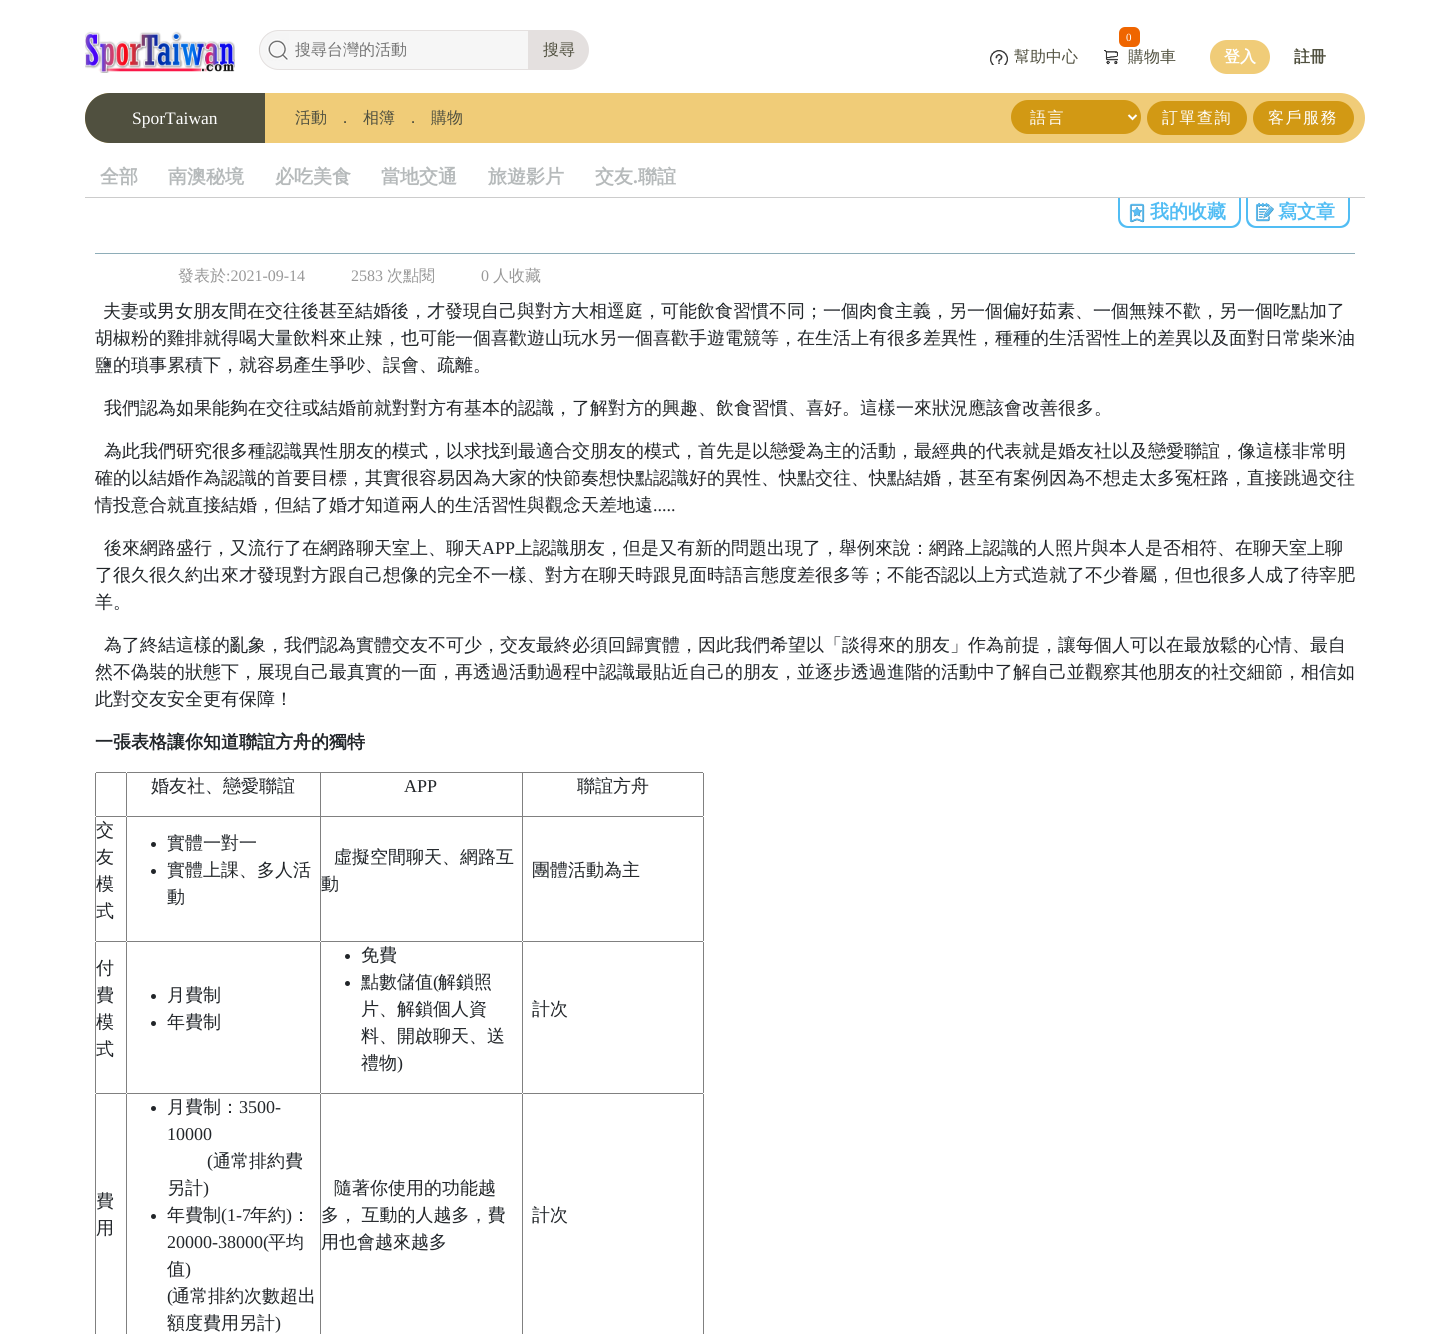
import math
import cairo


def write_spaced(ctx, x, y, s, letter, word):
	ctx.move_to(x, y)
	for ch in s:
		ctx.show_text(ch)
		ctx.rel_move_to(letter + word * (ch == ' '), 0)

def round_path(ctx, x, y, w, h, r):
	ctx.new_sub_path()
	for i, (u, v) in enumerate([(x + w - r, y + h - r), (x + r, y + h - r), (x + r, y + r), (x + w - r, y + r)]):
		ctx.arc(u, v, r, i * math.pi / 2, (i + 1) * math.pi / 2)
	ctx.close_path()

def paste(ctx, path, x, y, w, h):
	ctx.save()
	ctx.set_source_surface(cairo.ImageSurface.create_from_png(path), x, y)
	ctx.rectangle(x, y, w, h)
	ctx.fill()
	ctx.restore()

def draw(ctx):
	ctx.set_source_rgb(1, 1, 1)
	ctx.paint()
	paste(ctx, 'media/1.png', 85, 31, 150, 42)
	ctx.set_source_rgb(0.961, 0.961, 0.961)
	ctx.new_path()
	ctx.move_to(279, 30)
	ctx.line_to(529, 30)
	ctx.line_to(529, 70)
	ctx.line_to(279, 70)
	ctx.curve_to(268, 70, 259, 61, 259, 50)
	ctx.curve_to(259, 39, 268, 30, 279, 30)
	ctx.close_path()
	ctx.fill()
	paste(ctx, 'media/2.png', 267, 33, 22, 28)
	ctx.new_path()
	ctx.move_to(279, 30.5)
	ctx.line_to(528.5, 30.5)
	ctx.line_to(528.5, 69.5)
	ctx.line_to(279, 69.5)
	ctx.curve_to(268, 69.5, 259.5, 61, 259.5, 50)
	ctx.curve_to(259.5, 39, 268, 30.5, 279, 30.5)
	ctx.close_path()
	ctx.set_source_rgb(0.894, 0.878, 0.875)
	ctx.set_line_width(1)
	ctx.stroke()
	ctx.select_font_face('WenQuanYi Zen Hei Medium')
	ctx.set_font_size(16)
	ctx.set_source_rgb(0.459, 0.459, 0.459)
	ctx.move_to(295, 55)
	ctx.show_text('搜尋台灣的活動')
	ctx.set_source_rgb(0.894, 0.878, 0.875)
	ctx.new_path()
	ctx.move_to(529, 30)
	ctx.line_to(569, 30)
	ctx.curve_to(580, 30, 589, 39, 589, 50)
	ctx.curve_to(589, 61, 580, 70, 569, 70)
	ctx.line_to(529, 70)
	ctx.close_path()
	ctx.fill()
	ctx.set_source_rgb(0.314, 0.314, 0.247)
	ctx.move_to(543, 55)
	ctx.show_text('搜尋')
	paste(ctx, 'media/3.png', 990, 50, 18, 15)
	ctx.move_to(1014, 62)
	ctx.show_text('幫助中心')
	paste(ctx, 'media/4.png', 1104, 50, 14, 15)
	ctx.move_to(1128, 62)
	ctx.show_text('購物車')
	ctx.set_source_rgb(0.937, 0.396, 0)
	round_path(ctx, 1118, 26, 23, 22, 7)
	ctx.fill_preserve()
	ctx.set_source_rgb(1, 1, 1)
	ctx.set_line_width(2)
	ctx.stroke()
	ctx.select_font_face('Liberation Serif')
	ctx.set_font_size(11)
	ctx.move_to(1126, 41)
	ctx.show_text('0')
	ctx.set_source_rgb(0.941, 0.8, 0.471)
	round_path(ctx, 1210, 40, 60, 34, 17)
	ctx.fill()
	ctx.select_font_face('WenQuanYi Zen Hei', cairo.FONT_SLANT_NORMAL, cairo.FONT_WEIGHT_BOLD)
	ctx.set_font_size(16)
	ctx.set_source_rgb(1, 1, 1)
	ctx.move_to(1224, 62)
	ctx.show_text('登入')
	ctx.set_source_rgb(0.314, 0.314, 0.247)
	ctx.move_to(1294, 62)
	ctx.show_text('註冊')
	ctx.set_source_rgb(0.941, 0.8, 0.471)
	round_path(ctx, 85, 93, 1280, 50, 25)
	ctx.fill()
	ctx.set_source_rgb(0.314, 0.314, 0.247)
	ctx.new_path()
	ctx.move_to(110, 93)
	ctx.line_to(265, 93)
	ctx.line_to(265, 143)
	ctx.line_to(110, 143)
	ctx.curve_to(96, 143, 85, 132, 85, 118)
	ctx.curve_to(85, 104, 96, 93, 110, 93)
	ctx.close_path()
	ctx.fill()
	ctx.select_font_face('Liberation Serif')
	ctx.set_font_size(17.5)
	ctx.set_source_rgb(1, 1, 1)
	ctx.move_to(132, 124)
	ctx.show_text('SporTaiwan')
	ctx.select_font_face('WenQuanYi Zen Hei Medium')
	ctx.set_font_size(16)
	ctx.set_source_rgb(0.314, 0.314, 0.247)
	for x, y, s in [
		(295, 123, '活動'),
		(337, 123, '．'),
		(363, 123, '相簿'),
		(405, 123, '．'),
		(431, 123, '購物'),
	]:
		ctx.move_to(x, y)
		ctx.show_text(s)
	ctx.set_source_rgb(0.824, 0.6, 0.082)
	round_path(ctx, 1011, 100, 130, 34, 17)
	ctx.fill()
	ctx.new_path()
	ctx.move_to(1128.5, 115)
	ctx.line_to(1132.5, 119)
	ctx.line_to(1136.5, 115)
	ctx.set_source_rgb(1, 1, 1)
	ctx.stroke()
	write_spaced(ctx, 1030, 123, '語言', 1.5, 0)
	ctx.set_source_rgb(0.824, 0.6, 0.082)
	round_path(ctx, 1147, 101, 100, 34, 17)
	ctx.fill()
	ctx.set_source_rgb(1, 1, 1)
	write_spaced(ctx, 1162, 123, '訂單查詢', 1.5, 0)
	ctx.set_source_rgb(0.824, 0.6, 0.082)
	round_path(ctx, 1253, 101, 101, 34, 17)
	ctx.fill()
	ctx.set_source_rgb(1, 1, 1)
	write_spaced(ctx, 1268, 123, '客戶服務', 1.5, 0)
	ctx.set_source_rgb(0.8, 0.8, 0.8)
	ctx.rectangle(85, 197, 1280, 1)
	ctx.fill()
	ctx.select_font_face('WenQuanYi Zen Hei', cairo.FONT_SLANT_NORMAL, cairo.FONT_WEIGHT_BOLD)
	ctx.set_font_size(19)
	ctx.set_source_rgb(0.714, 0.729, 0.733)
	for x, y, s in [
		(100, 183, '全部'),
		(168, 183, '南澳秘境'),
		(275, 183, '必吃美食'),
		(381, 183, '當地交通'),
		(488, 183, '旅遊影片'),
		(595, 183, '交友'),
	]:
		ctx.move_to(x, y)
		ctx.show_text(s)
	ctx.select_font_face('Liberation Serif', cairo.FONT_SLANT_NORMAL, cairo.FONT_WEIGHT_BOLD)
	ctx.move_to(633, 183)
	ctx.show_text('.')
	ctx.select_font_face('WenQuanYi Zen Hei', cairo.FONT_SLANT_NORMAL, cairo.FONT_WEIGHT_BOLD)
	ctx.move_to(638, 183)
	ctx.show_text('聯誼')
	paste(ctx, 'media/5.png', 1129, 203, 16, 20)
	ctx.set_source_rgb(0.318, 0.741, 0.957)
	ctx.set_fill_rule(cairo.FILL_RULE_EVEN_ODD)
	ctx.new_path()
	ctx.move_to(1118, 198)
	ctx.line_to(1241, 198)
	ctx.line_to(1241, 218)
	ctx.curve_to(1241, 224, 1237, 228, 1231, 228)
	ctx.line_to(1128, 228)
	ctx.curve_to(1122, 228, 1118, 224, 1118, 218)
	ctx.close_path()
	ctx.move_to(1120, 198)
	ctx.line_to(1239, 198)
	ctx.line_to(1239, 218)
	ctx.curve_to(1239, 222, 1235, 226, 1231, 226)
	ctx.line_to(1128, 226)
	ctx.curve_to(1124, 226, 1120, 222, 1120, 218)
	ctx.close_path()
	ctx.fill()
	ctx.move_to(1150, 218)
	ctx.show_text('我的收藏')
	paste(ctx, 'media/6.png', 1255, 202, 19, 20)
	ctx.new_path()
	ctx.move_to(1246, 198)
	ctx.line_to(1350, 198)
	ctx.line_to(1350, 218)
	ctx.curve_to(1350, 224, 1346, 228, 1340, 228)
	ctx.line_to(1256, 228)
	ctx.curve_to(1250, 228, 1246, 224, 1246, 218)
	ctx.close_path()
	ctx.move_to(1248, 198)
	ctx.line_to(1348, 198)
	ctx.line_to(1348, 218)
	ctx.curve_to(1348, 222, 1344, 226, 1340, 226)
	ctx.line_to(1256, 226)
	ctx.curve_to(1252, 226, 1248, 222, 1248, 218)
	ctx.close_path()
	ctx.fill()
	ctx.move_to(1278, 218)
	ctx.show_text('寫文章')
	ctx.set_source_rgb(0.557, 0.678, 0.722)
	ctx.rectangle(95, 253, 1260, 1)
	ctx.fill()
	ctx.select_font_face('WenQuanYi Zen Hei Medium')
	ctx.set_font_size(16)
	ctx.set_source_rgb(0.6, 0.6, 0.6)
	ctx.move_to(178, 281)
	ctx.show_text('發表於')
	ctx.select_font_face('Liberation Serif')
	ctx.move_to(226, 281)
	ctx.show_text(':2021-09-14')
	ctx.move_to(351, 281)
	ctx.show_text('2583')
	ctx.select_font_face('WenQuanYi Zen Hei Medium')
	ctx.move_to(387, 281)
	ctx.show_text('次點閱')
	ctx.select_font_face('Liberation Serif')
	ctx.move_to(481, 281)
	ctx.show_text('0')
	ctx.select_font_face('WenQuanYi Zen Hei Medium')
	ctx.move_to(493, 281)
	ctx.show_text('人收藏')
	ctx.set_font_size(18)
	ctx.set_source_rgb(0.129, 0.145, 0.161)
	for x, y, s in [
		(103, 317, '夫妻或男女朋友間在交往後甚至結婚後，才發現自己與對方大相逕庭，可能飲食習慣不同；一個肉食主義，另一個偏好茹素、一個無辣不歡，另一個吃點加了'),
		(95, 344, '胡椒粉的雞排就得喝大量飲料來止辣，也可能一個喜歡遊山玩水另一個喜歡手遊電競等，在生活上有很多差異性，種種的生活習性上的差異以及面對日常柴米油'),
		(95, 371, '鹽的瑣事累積下，就容易產生爭吵、誤會、疏離。'),
		(104, 414, '我們認為如果能夠在交往或結婚前就對對方有基本的認識，了解對方的興趣、飲食習慣、喜好。這樣一來狀況應該會改善很多。'),
		(104, 457, '為此我們研究很多種認識異性朋友的模式，以求找到最適合交朋友的模式，首先是以戀愛為主的活動，最經典的代表就是婚友社以及戀愛聯誼，像這樣非常明'),
		(95, 484, '確的以結婚作為認識的首要目標，其實很容易因為大家的快節奏想快點認識好的異性、快點交往、快點結婚，甚至有案例因為不想走太多冤枉路，直接跳過交往'),
		(95, 511, '情投意合就直接結婚，但結了婚才知道兩人的生活習性與觀念天差地遠'),
	]:
		ctx.move_to(x, y)
		ctx.show_text(s)
	ctx.select_font_face('Liberation Serif')
	ctx.move_to(653, 511)
	ctx.show_text('.....')
	ctx.select_font_face('WenQuanYi Zen Hei Medium')
	ctx.move_to(104, 554)
	ctx.show_text('後來網路盛行，又流行了在網路聊天室上、聊天')
	ctx.select_font_face('Liberation Serif')
	ctx.move_to(482, 554)
	ctx.show_text('APP')
	ctx.select_font_face('WenQuanYi Zen Hei Medium')
	for x, y, s in [
		(515, 554, '上認識朋友，但是又有新的問題出現了，舉例來說：網路上認識的人照片與本人是否相符、在聊天室上聊'),
		(95, 581, '了很久很久約出來才發現對方跟自己想像的完全不一樣、對方在聊天時跟見面時語言態度差很多等；不能否認以上方式造就了不少眷屬，但也很多人成了待宰肥'),
		(95, 608, '羊。'),
		(104, 651, '為了終結這樣的亂象，我們認為實體交友不可少，交友最終必須回歸實體，因此我們希望以「談得來的朋友」作為前提，讓每個人可以在最放鬆的心情、最自'),
		(95, 678, '然不偽裝的狀態下，展現自己最真實的一面，再透過活動過程中認識最貼近自己的朋友，並逐步透過進階的活動中了解自己並觀察其他朋友的社交細節，相信如'),
		(95, 705, '此對交友安全更有保障！'),
	]:
		ctx.move_to(x, y)
		ctx.show_text(s)
	ctx.select_font_face('WenQuanYi Zen Hei', cairo.FONT_SLANT_NORMAL, cairo.FONT_WEIGHT_BOLD)
	ctx.move_to(95, 748)
	ctx.show_text('一張表格讓你知道聯誼方舟的獨特')
	ctx.set_source_rgb(0.502, 0.502, 0.502)
	ctx.rectangle(95, 772, 609, 1)
	ctx.rectangle(703, 772, 1, 562)
	ctx.rectangle(95, 772, 1, 562)
	ctx.rectangle(522, 816, 182, 1)
	ctx.rectangle(522, 941, 182, 1)
	ctx.rectangle(522, 1093, 182, 1)
	ctx.rectangle(522, 1093, 1, 241)
	ctx.rectangle(320, 1093, 203, 1)
	ctx.rectangle(522, 941, 1, 153)
	ctx.rectangle(320, 941, 203, 1)
	ctx.rectangle(522, 816, 1, 126)
	ctx.rectangle(320, 816, 203, 1)
	ctx.rectangle(320, 1093, 1, 241)
	ctx.rectangle(126, 1093, 195, 1)
	ctx.rectangle(320, 941, 1, 153)
	ctx.rectangle(126, 941, 195, 1)
	ctx.rectangle(320, 816, 1, 126)
	ctx.rectangle(126, 816, 195, 1)
	ctx.rectangle(126, 1093, 1, 241)
	ctx.rectangle(95, 1093, 32, 1)
	ctx.rectangle(126, 941, 1, 153)
	ctx.rectangle(95, 941, 32, 1)
	ctx.rectangle(126, 816, 1, 126)
	ctx.rectangle(95, 816, 32, 1)
	ctx.rectangle(126, 772, 1, 45)
	ctx.fill()
	ctx.select_font_face('WenQuanYi Zen Hei Medium')
	ctx.set_source_rgb(0.129, 0.145, 0.161)
	ctx.move_to(151, 792)
	ctx.show_text('婚友社、戀愛聯誼')
	ctx.set_source_rgb(0.502, 0.502, 0.502)
	ctx.rectangle(320, 772, 1, 45)
	ctx.fill()
	ctx.select_font_face('Liberation Serif')
	ctx.set_source_rgb(0.129, 0.145, 0.161)
	ctx.move_to(404, 792)
	ctx.show_text('APP')
	ctx.set_source_rgb(0.502, 0.502, 0.502)
	ctx.rectangle(522, 772, 1, 45)
	ctx.fill()
	ctx.select_font_face('WenQuanYi Zen Hei Medium')
	ctx.set_source_rgb(0.129, 0.145, 0.161)
	for x, y, s in [
		(577, 792, '聯誼方舟'),
		(96, 836, '交'),
		(96, 863, '友'),
		(96, 890, '模'),
		(96, 917, '式'),
	]:
		ctx.move_to(x, y)
		ctx.show_text(s)
	ctx.new_path()
	ctx.arc(153.5, 844.5, 2.5, 0, 2 * math.pi)
	ctx.fill()
	ctx.move_to(167, 849)
	ctx.show_text('實體一對一')
	ctx.new_path()
	ctx.arc(153.5, 871.5, 2.5, 0, 2 * math.pi)
	ctx.fill()
	for x, y, s in [
		(167, 876, '實體上課、多人活'),
		(167, 903, '動'),
		(334, 863, '虛擬空間聊天、網路互'),
		(321, 890, '動'),
		(532, 876, '團體活動為主'),
		(96, 974, '付'),
		(96, 1001, '費'),
		(96, 1028, '模'),
		(96, 1055, '式'),
	]:
		ctx.move_to(x, y)
		ctx.show_text(s)
	ctx.new_path()
	ctx.arc(153.5, 996.5, 2.5, 0, 2 * math.pi)
	ctx.fill()
	ctx.move_to(167, 1001)
	ctx.show_text('月費制')
	ctx.new_path()
	ctx.arc(153.5, 1023.5, 2.5, 0, 2 * math.pi)
	ctx.fill()
	ctx.move_to(167, 1028)
	ctx.show_text('年費制')
	ctx.new_path()
	ctx.arc(347.5, 956.5, 2.5, 0, 2 * math.pi)
	ctx.fill()
	ctx.move_to(361, 961)
	ctx.show_text('免費')
	ctx.new_path()
	ctx.arc(347.5, 983.5, 2.5, 0, 2 * math.pi)
	ctx.fill()
	ctx.move_to(361, 988)
	ctx.show_text('點數儲值')
	ctx.select_font_face('Liberation Serif')
	ctx.move_to(433, 988)
	ctx.show_text('(')
	ctx.select_font_face('WenQuanYi Zen Hei Medium')
	for x, y, s in [
		(438, 988, '解鎖照'),
		(361, 1015, '片、解鎖個人資'),
		(361, 1042, '料、開啟聊天、送'),
		(361, 1069, '禮物'),
	]:
		ctx.move_to(x, y)
		ctx.show_text(s)
	ctx.select_font_face('Liberation Serif')
	ctx.move_to(397, 1069)
	ctx.show_text(')')
	ctx.select_font_face('WenQuanYi Zen Hei Medium')
	for x, y, s in [
		(532, 1015, '計次'),
		(96, 1207, '費'),
		(96, 1234, '用'),
	]:
		ctx.move_to(x, y)
		ctx.show_text(s)
	ctx.new_path()
	ctx.arc(153.5, 1108.5, 2.5, 0, 2 * math.pi)
	ctx.fill()
	ctx.move_to(167, 1113)
	ctx.show_text('月費制：')
	ctx.select_font_face('Liberation Serif')
	for x, y, s in [
		(239, 1113, '3500-'),
		(167, 1140, '10000'),
		(207, 1167, '('),
	]:
		ctx.move_to(x, y)
		ctx.show_text(s)
	ctx.select_font_face('WenQuanYi Zen Hei Medium')
	ctx.move_to(213, 1167)
	ctx.show_text('通常排約費')
	ctx.move_to(167, 1194)
	ctx.show_text('另計')
	ctx.select_font_face('Liberation Serif')
	ctx.move_to(203, 1194)
	ctx.show_text(')')
	ctx.new_path()
	ctx.arc(153.5, 1216.5, 2.5, 0, 2 * math.pi)
	ctx.fill()
	ctx.select_font_face('WenQuanYi Zen Hei Medium')
	ctx.move_to(167, 1221)
	ctx.show_text('年費制')
	ctx.select_font_face('Liberation Serif')
	ctx.move_to(221, 1221)
	ctx.show_text('(1-7')
	ctx.select_font_face('WenQuanYi Zen Hei Medium')
	ctx.move_to(250, 1221)
	ctx.show_text('年約')
	ctx.select_font_face('Liberation Serif')
	ctx.move_to(286, 1221)
	ctx.show_text(')')
	ctx.select_font_face('WenQuanYi Zen Hei Medium')
	ctx.move_to(292, 1221)
	ctx.show_text('：')
	ctx.select_font_face('Liberation Serif')
	ctx.move_to(167, 1248)
	ctx.show_text('20000-38000(')
	ctx.select_font_face('WenQuanYi Zen Hei Medium')
	ctx.move_to(268, 1248)
	ctx.show_text('平均')
	ctx.move_to(167, 1275)
	ctx.show_text('值')
	ctx.select_font_face('Liberation Serif')
	ctx.move_to(185, 1275)
	ctx.show_text(')')
	ctx.move_to(167, 1302)
	ctx.show_text('(')
	ctx.select_font_face('WenQuanYi Zen Hei Medium')
	ctx.move_to(172, 1302)
	ctx.show_text('通常排約次數超出')
	ctx.move_to(167, 1329)
	ctx.show_text('額度費用另計')
	ctx.select_font_face('Liberation Serif')
	ctx.move_to(275, 1329)
	ctx.show_text(')')
	ctx.select_font_face('WenQuanYi Zen Hei Medium')
	ctx.move_to(334, 1194)
	ctx.show_text('隨著你使用的功能越')
	write_spaced(ctx, 321, 1221, '多， 互動的人越多，費', 0, -1)
	ctx.move_to(321, 1248)
	ctx.show_text('用也會越來越多')
	ctx.move_to(532, 1221)
	ctx.show_text('計次')


surface = cairo.ImageSurface(cairo.FORMAT_RGB24, 1449, 1334)
ctx = cairo.Context(surface)
options = cairo.FontOptions()
options.set_hint_metrics(cairo.HINT_METRICS_OFF)
options.set_hint_style(cairo.HINT_STYLE_NONE)
ctx.set_font_options(options)
ctx.set_miter_limit(4)
draw(ctx)
surface.write_to_png('image.png')
